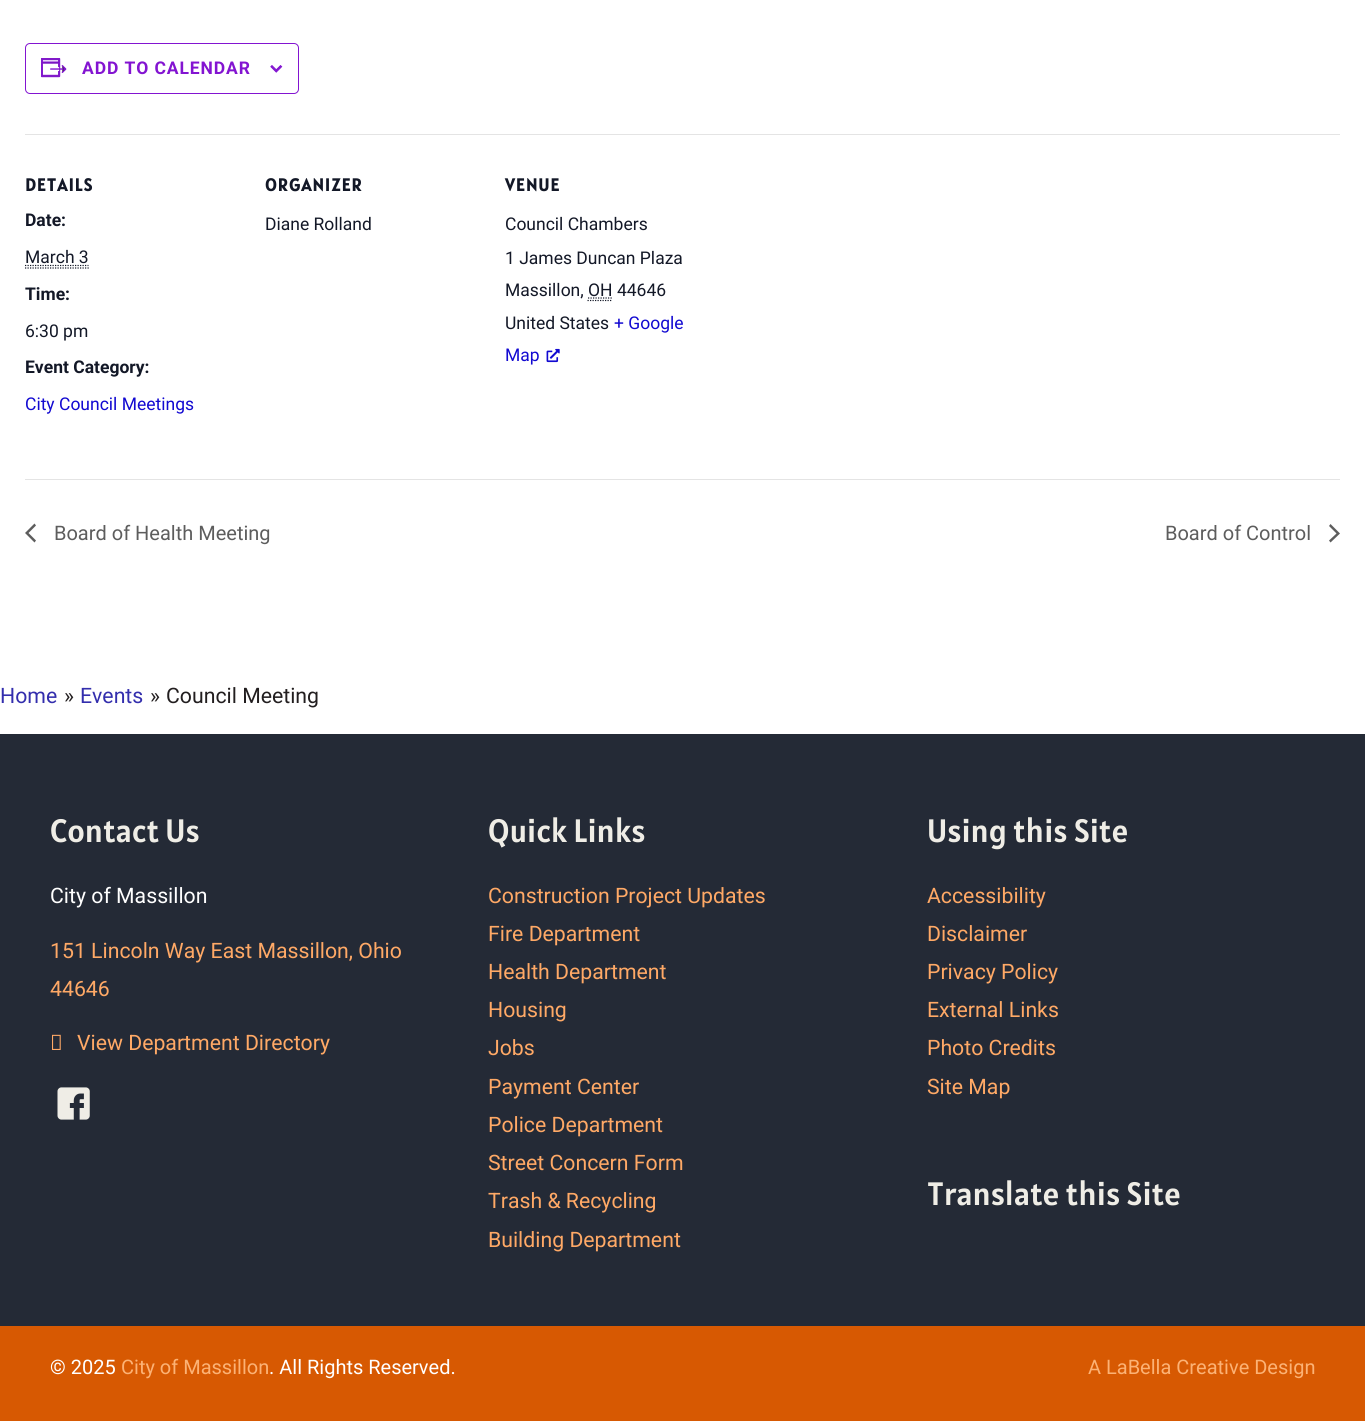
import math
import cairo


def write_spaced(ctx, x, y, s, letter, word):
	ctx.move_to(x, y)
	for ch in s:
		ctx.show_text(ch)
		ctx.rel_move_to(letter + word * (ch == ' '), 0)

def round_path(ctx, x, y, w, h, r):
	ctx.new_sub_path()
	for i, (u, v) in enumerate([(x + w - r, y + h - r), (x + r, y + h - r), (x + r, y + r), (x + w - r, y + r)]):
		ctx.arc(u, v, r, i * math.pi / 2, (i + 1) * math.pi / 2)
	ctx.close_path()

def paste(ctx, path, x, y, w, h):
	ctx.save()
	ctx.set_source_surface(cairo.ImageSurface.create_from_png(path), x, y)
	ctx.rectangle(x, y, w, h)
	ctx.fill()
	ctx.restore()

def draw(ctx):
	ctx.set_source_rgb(1, 1, 1)
	ctx.paint()
	round_path(ctx, 25.5, 43.5, 273, 50, 4.5)
	ctx.set_source_rgb(0.514, 0.082, 0.82)
	ctx.set_line_width(1)
	ctx.stroke()
	paste(ctx, 'media/1.png', 41, 58, 26, 20)
	ctx.select_font_face('Roboto', cairo.FONT_SLANT_NORMAL, cairo.FONT_WEIGHT_BOLD)
	ctx.set_font_size(17.5)
	write_spaced(ctx, 82, 74, 'ADD TO CALENDAR', 0.9, 0)
	paste(ctx, 'media/2.png', 270, 65, 13, 8)
	ctx.set_source_rgb(0.894, 0.894, 0.894)
	ctx.rectangle(25, 134, 1315, 1)
	ctx.fill()
	ctx.select_font_face('Alatsi', cairo.FONT_SLANT_NORMAL, cairo.FONT_WEIGHT_BOLD)
	ctx.set_source_rgb(0.078, 0.094, 0.153)
	write_spaced(ctx, 25, 191, 'DETAILS', 1.25, 0)
	ctx.select_font_face('Roboto', cairo.FONT_SLANT_NORMAL, cairo.FONT_WEIGHT_BOLD)
	ctx.move_to(25, 226)
	ctx.show_text('Date:')
	ctx.select_font_face('Roboto')
	ctx.move_to(25, 263)
	ctx.show_text('March 3')
	ctx.new_path()
	ctx.move_to(25, 268)
	ctx.line_to(89, 268)
	ctx.set_line_width(1.2)
	ctx.set_dash([1.25, 1.25])
	ctx.stroke()
	ctx.new_path()
	ctx.move_to(25, 265.5)
	ctx.line_to(88.5, 265.5)
	ctx.stroke()
	ctx.select_font_face('Roboto', cairo.FONT_SLANT_NORMAL, cairo.FONT_WEIGHT_BOLD)
	ctx.move_to(25, 300)
	ctx.show_text('Time:')
	ctx.select_font_face('Roboto')
	ctx.move_to(25, 337)
	ctx.show_text('6:30 pm')
	ctx.select_font_face('Roboto', cairo.FONT_SLANT_NORMAL, cairo.FONT_WEIGHT_BOLD)
	ctx.move_to(25, 373)
	ctx.show_text('Event Category:')
	ctx.select_font_face('Roboto')
	ctx.set_source_rgb(0.071, 0.039, 0.82)
	ctx.move_to(25, 410)
	ctx.show_text('City Council Meetings')
	ctx.select_font_face('Alatsi', cairo.FONT_SLANT_NORMAL, cairo.FONT_WEIGHT_BOLD)
	ctx.set_source_rgb(0.078, 0.094, 0.153)
	write_spaced(ctx, 265, 191, 'ORGANIZER', 1.25, 0)
	ctx.select_font_face('Roboto')
	ctx.move_to(265, 230)
	ctx.show_text('Diane Rolland')
	ctx.select_font_face('Alatsi', cairo.FONT_SLANT_NORMAL, cairo.FONT_WEIGHT_BOLD)
	write_spaced(ctx, 505, 191, 'VENUE', 1.25, 0)
	ctx.select_font_face('Roboto')
	for x, y, s in [
		(505, 230, 'Council Chambers'),
		(505, 264, '1 James Duncan Plaza'),
		(505, 296, 'Massillon, OH 44646'),
	]:
		ctx.move_to(x, y)
		ctx.show_text(s)
	ctx.new_path()
	ctx.move_to(587.5, 300.5)
	ctx.line_to(612.5, 300.5)
	ctx.move_to(588, 298)
	ctx.line_to(612.5, 298)
	ctx.stroke()
	ctx.move_to(505, 329)
	ctx.show_text('United States')
	ctx.set_source_rgb(0.071, 0.039, 0.82)
	ctx.move_to(614, 329)
	ctx.show_text('+ Google')
	ctx.move_to(505, 361)
	ctx.show_text('Map')
	paste(ctx, 'media/3.png', 546, 348, 14, 15)
	ctx.set_source_rgb(0.894, 0.894, 0.894)
	ctx.rectangle(25, 479, 1315, 1)
	ctx.fill()
	ctx.set_source_rgb(0.365, 0.365, 0.365)
	ctx.new_path()
	ctx.move_to(36, 540.5)
	ctx.line_to(34.5, 542.5)
	ctx.line_to(25, 533)
	ctx.line_to(34.5, 523.5)
	ctx.line_to(36, 525.5)
	ctx.line_to(28.5, 533)
	ctx.close_path()
	ctx.fill()
	ctx.set_font_size(20)
	ctx.move_to(54, 540)
	ctx.show_text('Board of Health Meeting')
	ctx.move_to(1165, 540)
	ctx.show_text('Board of Control')
	ctx.new_path()
	ctx.move_to(1329, 526)
	ctx.line_to(1330.5, 524)
	ctx.line_to(1340, 533.5)
	ctx.line_to(1330.5, 542.5)
	ctx.line_to(1329, 540.5)
	ctx.line_to(1336.5, 533.5)
	ctx.close_path()
	ctx.fill()
	ctx.set_font_size(21.25)
	ctx.set_source_rgb(0.2, 0.18, 0.678)
	ctx.move_to(0, 703)
	ctx.show_text('Home')
	ctx.set_source_rgb(0.133, 0.118, 0.122)
	ctx.move_to(64, 703)
	ctx.show_text('»')
	ctx.set_source_rgb(0.2, 0.18, 0.678)
	ctx.move_to(80, 703)
	ctx.show_text('Events')
	ctx.set_source_rgb(0.133, 0.118, 0.122)
	ctx.move_to(150, 703)
	ctx.show_text('»')
	ctx.move_to(166, 703)
	ctx.show_text('Council Meeting')
	ctx.set_source_rgb(0.141, 0.165, 0.212)
	ctx.rectangle(0, 734, 1365, 592)
	ctx.fill()
	ctx.select_font_face('Alatsi')
	ctx.set_font_size(32.5)
	ctx.set_source_rgb(0.937, 0.929, 0.902)
	ctx.move_to(50, 842)
	ctx.show_text('Contact Us')
	ctx.select_font_face('Roboto')
	ctx.set_font_size(21.25)
	ctx.set_source_rgb(1, 1, 1)
	ctx.move_to(50, 903)
	ctx.show_text('City of Massillon')
	ctx.set_source_rgb(1, 0.663, 0.4)
	ctx.move_to(50, 958)
	ctx.show_text('151 Lincoln Way East Massillon, Ohio')
	ctx.move_to(50, 996)
	ctx.show_text('44646')
	paste(ctx, 'media/4.png', 52, 1034, 9, 16)
	ctx.move_to(77, 1050)
	ctx.show_text('View Department Directory')
	paste(ctx, 'media/5.png', 57, 1087, 33, 33)
	ctx.select_font_face('Alatsi')
	ctx.set_font_size(32.5)
	ctx.set_source_rgb(0.937, 0.929, 0.902)
	ctx.move_to(488, 842)
	ctx.show_text('Quick Links')
	ctx.select_font_face('Roboto')
	ctx.set_font_size(21.25)
	ctx.set_source_rgb(1, 0.663, 0.4)
	for x, y, s in [
		(488, 903, 'Construction Project Updates'),
		(488, 941, 'Fire Department'),
		(488, 979, 'Health Department'),
		(488, 1017, 'Housing'),
		(488, 1055, 'Jobs'),
		(488, 1094, 'Payment Center'),
		(488, 1132, 'Police Department'),
		(488, 1170, 'Street Concern Form'),
		(488, 1208, 'Trash & Recycling'),
		(488, 1247, 'Building Department'),
	]:
		ctx.move_to(x, y)
		ctx.show_text(s)
	ctx.select_font_face('Alatsi')
	ctx.set_font_size(32.5)
	ctx.set_source_rgb(0.937, 0.929, 0.902)
	ctx.move_to(927, 842)
	ctx.show_text('Using this Site')
	ctx.select_font_face('Roboto')
	ctx.set_font_size(21.25)
	ctx.set_source_rgb(1, 0.663, 0.4)
	for x, y, s in [
		(927, 903, 'Accessibility'),
		(927, 941, 'Disclaimer'),
		(927, 979, 'Privacy Policy'),
		(927, 1017, 'External Links'),
		(927, 1055, 'Photo Credits'),
		(927, 1094, 'Site Map'),
	]:
		ctx.move_to(x, y)
		ctx.show_text(s)
	ctx.select_font_face('Alatsi')
	ctx.set_font_size(32.5)
	ctx.set_source_rgb(0.937, 0.929, 0.902)
	ctx.move_to(927, 1205)
	ctx.show_text('Translate this Site')
	ctx.set_source_rgb(0.843, 0.349, 0.008)
	ctx.rectangle(0, 1326, 1365, 95)
	ctx.fill()
	ctx.select_font_face('Roboto')
	ctx.set_font_size(20)
	ctx.set_source_rgb(1, 1, 1)
	ctx.move_to(50, 1374)
	ctx.show_text('© 2025')
	ctx.set_source_rgb(0.988, 0.698, 0.459)
	ctx.move_to(121, 1374)
	ctx.show_text('City of Massillon')
	ctx.set_source_rgb(1, 1, 1)
	ctx.move_to(269, 1374)
	ctx.show_text('. All Rights Reserved.')
	ctx.set_source_rgb(0.988, 0.698, 0.459)
	ctx.move_to(1088, 1374)
	ctx.show_text('A LaBella Creative Design')


surface = cairo.ImageSurface(cairo.FORMAT_RGB24, 1365, 1421)
ctx = cairo.Context(surface)
options = cairo.FontOptions()
options.set_hint_metrics(cairo.HINT_METRICS_OFF)
options.set_hint_style(cairo.HINT_STYLE_NONE)
ctx.set_font_options(options)
ctx.set_miter_limit(4)
draw(ctx)
surface.write_to_png('image.png')
